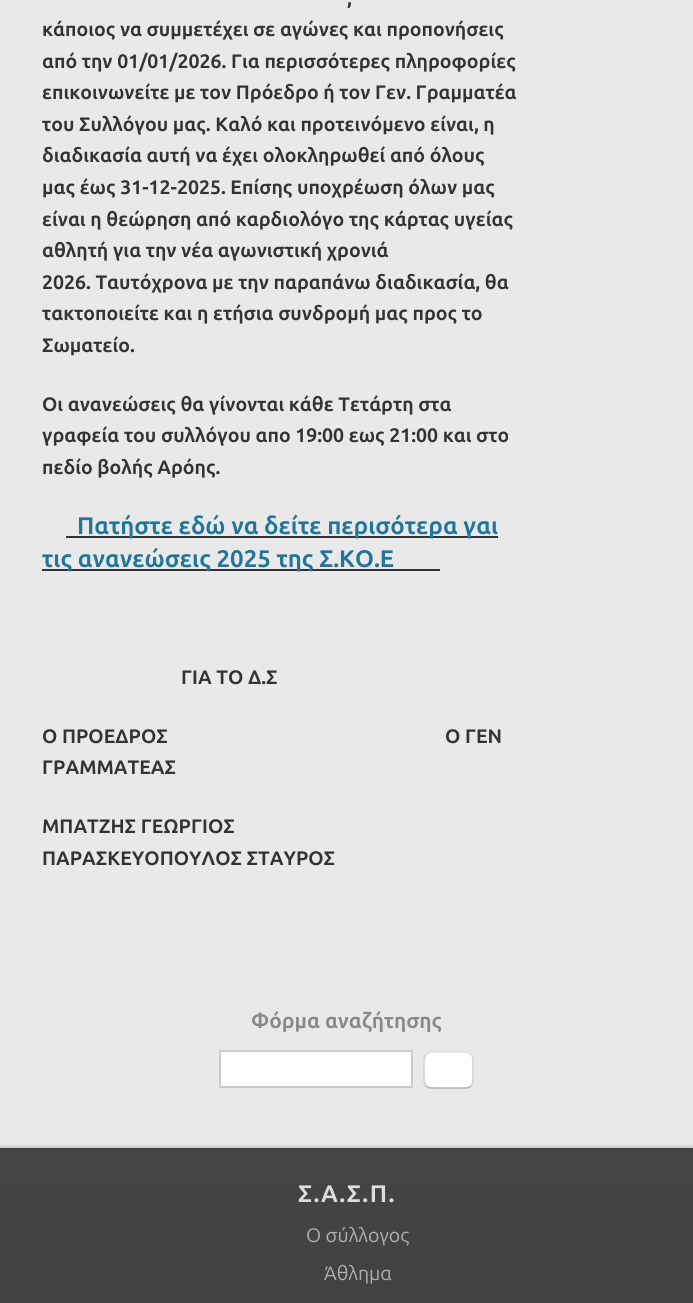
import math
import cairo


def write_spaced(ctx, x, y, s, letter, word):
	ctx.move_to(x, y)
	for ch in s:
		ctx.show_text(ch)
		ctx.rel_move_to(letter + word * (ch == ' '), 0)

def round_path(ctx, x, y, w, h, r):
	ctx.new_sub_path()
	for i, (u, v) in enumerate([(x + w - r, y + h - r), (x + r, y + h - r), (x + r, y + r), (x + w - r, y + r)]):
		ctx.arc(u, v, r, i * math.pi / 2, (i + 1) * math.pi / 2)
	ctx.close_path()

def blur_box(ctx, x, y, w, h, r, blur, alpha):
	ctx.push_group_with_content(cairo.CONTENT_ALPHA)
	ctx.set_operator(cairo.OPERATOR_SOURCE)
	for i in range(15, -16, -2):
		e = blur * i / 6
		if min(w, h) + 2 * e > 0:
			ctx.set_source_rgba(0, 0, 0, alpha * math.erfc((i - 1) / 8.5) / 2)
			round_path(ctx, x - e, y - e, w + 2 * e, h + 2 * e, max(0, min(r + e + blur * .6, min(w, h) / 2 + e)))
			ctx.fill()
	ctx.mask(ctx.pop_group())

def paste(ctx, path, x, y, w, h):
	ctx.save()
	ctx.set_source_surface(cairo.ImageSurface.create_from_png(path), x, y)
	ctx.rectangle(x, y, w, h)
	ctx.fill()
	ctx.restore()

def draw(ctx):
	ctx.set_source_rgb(0.914, 0.914, 0.914)
	ctx.paint()
	ctx.select_font_face('Ubuntu', cairo.FONT_SLANT_NORMAL, cairo.FONT_WEIGHT_BOLD)
	ctx.set_font_size(19.5)
	ctx.set_source_rgb(0.2, 0.2, 0.2)
	for x, y, s in [
		(347, 5, ','),
		(42, 36, 'κάποιος να συμμετέχει σε αγώνες και προπονήσεις'),
		(42, 68, 'από την 01/01/2026. Για περισσότερες πληροφορίες'),
		(42, 99, 'επικοινωνείτε με τον Πρόεδρο ή τον Γεν. Γραμματέα'),
		(42, 131, 'του Συλλόγου μας. Καλό και προτεινόμενο είναι, η'),
		(42, 162, 'διαδικασία αυτή να έχει ολοκληρωθεί από όλους'),
		(42, 194, 'μας έως 31-12-2025. Επίσης υποχρέωση όλων μας'),
		(42, 226, 'είναι η θεώρηση από καρδιολόγο της κάρτας υγείας'),
		(42, 257, 'αθλητή για την νέα αγωνιστική χρονιά'),
		(42, 289, '2026. Ταυτόχρονα με την παραπάνω διαδικασία, θα'),
		(42, 320, 'τακτοποιείτε και η ετήσια συνδρομή μας προς το'),
		(42, 352, 'Σωματείο.'),
		(42, 411, 'Oι ανανεώσεις θα γίνονται κάθε Τετάρτη στα'),
		(42, 442, 'γραφεία του συλλόγου απο 19:00 εως 21:00 και στο'),
		(42, 474, 'πεδίο βολής Αρόης.'),
	]:
		ctx.move_to(x, y)
		ctx.show_text(s)
	ctx.rectangle(66, 536, 432, 2)
	ctx.fill()
	ctx.set_font_size(24)
	ctx.set_source_rgb(0.129, 0.459, 0.608)
	ctx.move_to(77, 534)
	ctx.show_text('Πατήστε εδώ να δείτε περισότερα γαι')
	ctx.set_source_rgb(0.2, 0.2, 0.2)
	ctx.rectangle(42, 569, 398, 2)
	ctx.fill()
	ctx.set_source_rgb(0.129, 0.459, 0.608)
	ctx.move_to(42, 567)
	ctx.show_text('τις ανανεώσεις 2025 της Σ.ΚΟ.Ε')
	ctx.set_font_size(19.5)
	ctx.set_source_rgb(0.2, 0.2, 0.2)
	for x, y, s in [
		(181, 684, 'ΓΙΑ ΤΟ Δ.Σ'),
		(42, 743, 'Ο ΠΡΟΕΔΡΟΣ                                                            Ο ΓΕΝ'),
		(42, 774, 'ΓΡΑΜΜΑΤΕΑΣ'),
		(42, 833, 'ΜΠΑΤΖΗΣ ΓΕΩΡΓΙΟΣ'),
		(42, 865, 'ΠΑΡΑΣΚΕΥΟΠΟΥΛΟΣ ΣΤΑΥΡΟΣ'),
	]:
		ctx.move_to(x, y)
		ctx.show_text(s)
	ctx.set_font_size(21)
	ctx.set_source_rgb(0.533, 0.533, 0.533)
	ctx.move_to(251, 1028)
	ctx.show_text('Φόρμα αναζήτησης')
	ctx.set_source_rgb(1, 1, 1)
	ctx.rectangle(220, 1051, 192, 36)
	ctx.fill_preserve()
	ctx.set_source_rgb(0.8, 0.8, 0.8)
	ctx.stroke()
	paste(ctx, 'media/1.png', 423, 1053, 51, 28)
	ctx.set_source_rgb(1, 1, 1)
	ctx.new_path()
	ctx.move_to(433, 1053)
	ctx.curve_to(422, 1053, 425, 1067, 425, 1074)
	ctx.curve_to(425, 1086, 426, 1088, 438, 1088)
	ctx.line_to(460, 1088)
	ctx.curve_to(473, 1088, 473, 1085, 473, 1074)
	ctx.curve_to(473, 1067, 476, 1053, 465, 1053)
	ctx.close_path()
	ctx.fill()
	ctx.new_path()
	ctx.move_to(426, 1054.5)
	ctx.curve_to(427.5, 1053, 430, 1052, 432, 1052)
	ctx.line_to(465, 1052)
	ctx.curve_to(467, 1052, 469.5, 1053, 471, 1054.5)
	ctx.set_source_rgb(0.894, 0.894, 0.894)
	ctx.set_line_width(1.5)
	ctx.stroke()
	ctx.new_path()
	ctx.move_to(471, 1054.5)
	ctx.curve_to(472.5, 1056, 473, 1058.5, 473, 1060.5)
	ctx.line_to(473, 1080)
	ctx.curve_to(473, 1082, 472.5, 1084.5, 471, 1086)
	ctx.set_source_rgb(0.824, 0.824, 0.824)
	ctx.stroke()
	ctx.new_path()
	ctx.move_to(471, 1086)
	ctx.curve_to(469.5, 1087.5, 467, 1088, 465, 1088)
	ctx.line_to(432, 1088)
	ctx.curve_to(430, 1088, 427.5, 1087.5, 426, 1086)
	ctx.set_source_rgb(0.706, 0.706, 0.706)
	ctx.stroke()
	ctx.new_path()
	ctx.move_to(426, 1086)
	ctx.curve_to(424.5, 1084.5, 424, 1082, 424, 1080)
	ctx.line_to(424, 1060.5)
	ctx.curve_to(424, 1058.5, 424.5, 1056, 426, 1054.5)
	ctx.set_source_rgb(0.824, 0.824, 0.824)
	ctx.stroke()
	ctx.set_source_rgb(0.6, 0.6, 0.6)
	blur_box(ctx, 0, 1148, 693, 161, 0, 2, 1)
	gradient = cairo.LinearGradient(346, 1148, 347, 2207)
	gradient.add_color_stop_rgba(0, 0.267, 0.267, 0.267, 1)
	gradient.add_color_stop_rgba(1, 0.2, 0.2, 0.2, 1)
	ctx.set_source(gradient)
	ctx.rectangle(0, 1148, 693, 155)
	ctx.fill()
	ctx.set_font_size(24)
	ctx.set_source_rgb(0.867, 0.867, 0.867)
	write_spaced(ctx, 298, 1202, 'Σ.Α.Σ.Π.', 1.5, 0)
	ctx.select_font_face('Ubuntu')
	ctx.set_font_size(19.5)
	ctx.set_source_rgb(0.694, 0.694, 0.694)
	ctx.move_to(306, 1242)
	ctx.show_text('Ο σύλλογος')
	ctx.move_to(324, 1280)
	ctx.show_text('Άθλημα')


surface = cairo.ImageSurface(cairo.FORMAT_RGB24, 693, 1303)
ctx = cairo.Context(surface)
options = cairo.FontOptions()
options.set_hint_metrics(cairo.HINT_METRICS_OFF)
options.set_hint_style(cairo.HINT_STYLE_NONE)
ctx.set_font_options(options)
ctx.set_miter_limit(4)
draw(ctx)
surface.write_to_png('image.png')
